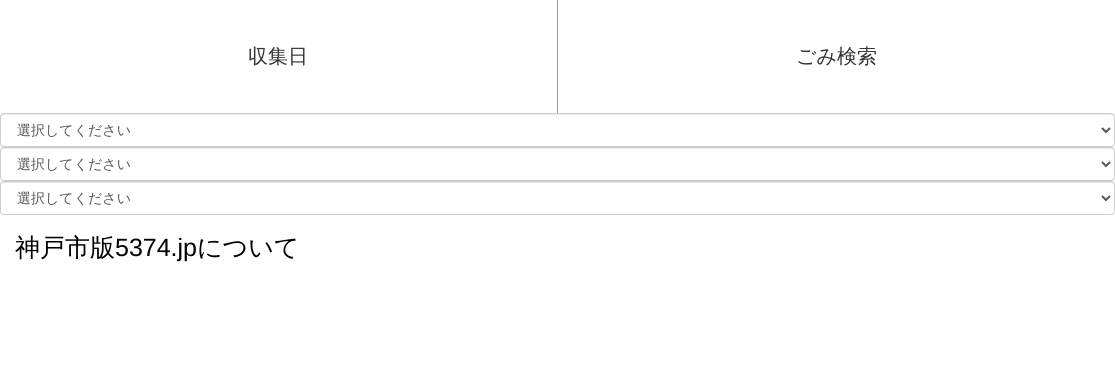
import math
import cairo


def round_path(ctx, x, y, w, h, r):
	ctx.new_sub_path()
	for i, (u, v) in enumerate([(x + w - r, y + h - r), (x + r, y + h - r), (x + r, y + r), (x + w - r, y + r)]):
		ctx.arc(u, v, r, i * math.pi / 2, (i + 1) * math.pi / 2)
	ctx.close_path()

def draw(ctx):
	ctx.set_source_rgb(1, 1, 1)
	ctx.paint()
	ctx.set_source_rgb(0.6, 0.6, 0.6)
	ctx.rectangle(557, 0, 1, 113)
	ctx.fill()
	ctx.select_font_face('WenQuanYi Zen Hei Medium')
	ctx.set_font_size(20)
	ctx.set_source_rgb(0.2, 0.2, 0.2)
	ctx.move_to(248, 63)
	ctx.show_text('収集日')
	ctx.move_to(796, 63)
	ctx.show_text('ごみ検索')
	ctx.set_source_rgb(0.925, 0.925, 0.925)
	ctx.new_path()
	ctx.move_to(4, 115)
	ctx.line_to(1111, 115)
	ctx.curve_to(1113, 115, 1114, 116, 1114, 118)
	ctx.line_to(1114, 117)
	ctx.curve_to(1114, 115, 1113, 114, 1111, 114)
	ctx.line_to(4, 114)
	ctx.curve_to(2, 114, 1, 115, 1, 117)
	ctx.line_to(1, 118)
	ctx.curve_to(1, 116, 2, 115, 4, 115)
	ctx.close_path()
	ctx.fill()
	round_path(ctx, 0.5, 113.5, 1114, 33, 3.5)
	ctx.set_source_rgb(0.8, 0.8, 0.8)
	ctx.set_line_width(1)
	ctx.stroke()
	ctx.new_path()
	ctx.move_to(1102, 128)
	ctx.line_to(1106, 132)
	ctx.line_to(1110, 128)
	ctx.set_source_rgb(0.333, 0.333, 0.333)
	ctx.set_line_width(2)
	ctx.stroke()
	ctx.set_font_size(14)
	ctx.move_to(17, 135)
	ctx.show_text('選択してください')
	ctx.set_source_rgb(0.925, 0.925, 0.925)
	ctx.new_path()
	ctx.move_to(4, 149)
	ctx.line_to(1111, 149)
	ctx.curve_to(1113, 149, 1114, 150, 1114, 152)
	ctx.line_to(1114, 151)
	ctx.curve_to(1114, 149, 1113, 148, 1111, 148)
	ctx.line_to(4, 148)
	ctx.curve_to(2, 148, 1, 149, 1, 151)
	ctx.line_to(1, 152)
	ctx.curve_to(1, 150, 2, 149, 4, 149)
	ctx.close_path()
	ctx.fill()
	round_path(ctx, 0.5, 147.5, 1114, 33, 3.5)
	ctx.set_source_rgb(0.8, 0.8, 0.8)
	ctx.set_line_width(1)
	ctx.stroke()
	ctx.new_path()
	ctx.move_to(1102, 162)
	ctx.line_to(1106, 166)
	ctx.line_to(1110, 162)
	ctx.set_source_rgb(0.333, 0.333, 0.333)
	ctx.set_line_width(2)
	ctx.stroke()
	ctx.move_to(17, 169)
	ctx.show_text('選択してください')
	ctx.set_source_rgb(0.925, 0.925, 0.925)
	ctx.new_path()
	ctx.move_to(4, 183)
	ctx.line_to(1111, 183)
	ctx.curve_to(1113, 183, 1114, 184, 1114, 186)
	ctx.line_to(1114, 185)
	ctx.curve_to(1114, 183, 1113, 182, 1111, 182)
	ctx.line_to(4, 182)
	ctx.curve_to(2, 182, 1, 183, 1, 185)
	ctx.line_to(1, 186)
	ctx.curve_to(1, 184, 2, 183, 4, 183)
	ctx.close_path()
	ctx.fill()
	round_path(ctx, 0.5, 181.5, 1114, 33, 3.5)
	ctx.set_source_rgb(0.8, 0.8, 0.8)
	ctx.set_line_width(1)
	ctx.stroke()
	ctx.new_path()
	ctx.move_to(1102, 196)
	ctx.line_to(1106, 200)
	ctx.line_to(1110, 196)
	ctx.set_source_rgb(0.333, 0.333, 0.333)
	ctx.set_line_width(2)
	ctx.stroke()
	ctx.move_to(17, 203)
	ctx.show_text('選択してください')
	ctx.set_font_size(25)
	ctx.set_source_rgb(0, 0, 0)
	ctx.move_to(15, 256)
	ctx.show_text('神戸市版')
	ctx.select_font_face('Liberation Sans')
	ctx.move_to(115, 256)
	ctx.show_text('5374.jp')
	ctx.select_font_face('WenQuanYi Zen Hei Medium')
	ctx.move_to(197, 256)
	ctx.show_text('について')


surface = cairo.ImageSurface(cairo.FORMAT_RGB24, 1115, 384)
ctx = cairo.Context(surface)
options = cairo.FontOptions()
options.set_hint_metrics(cairo.HINT_METRICS_OFF)
options.set_hint_style(cairo.HINT_STYLE_NONE)
ctx.set_font_options(options)
ctx.set_miter_limit(4)
draw(ctx)
surface.write_to_png('image.png')
